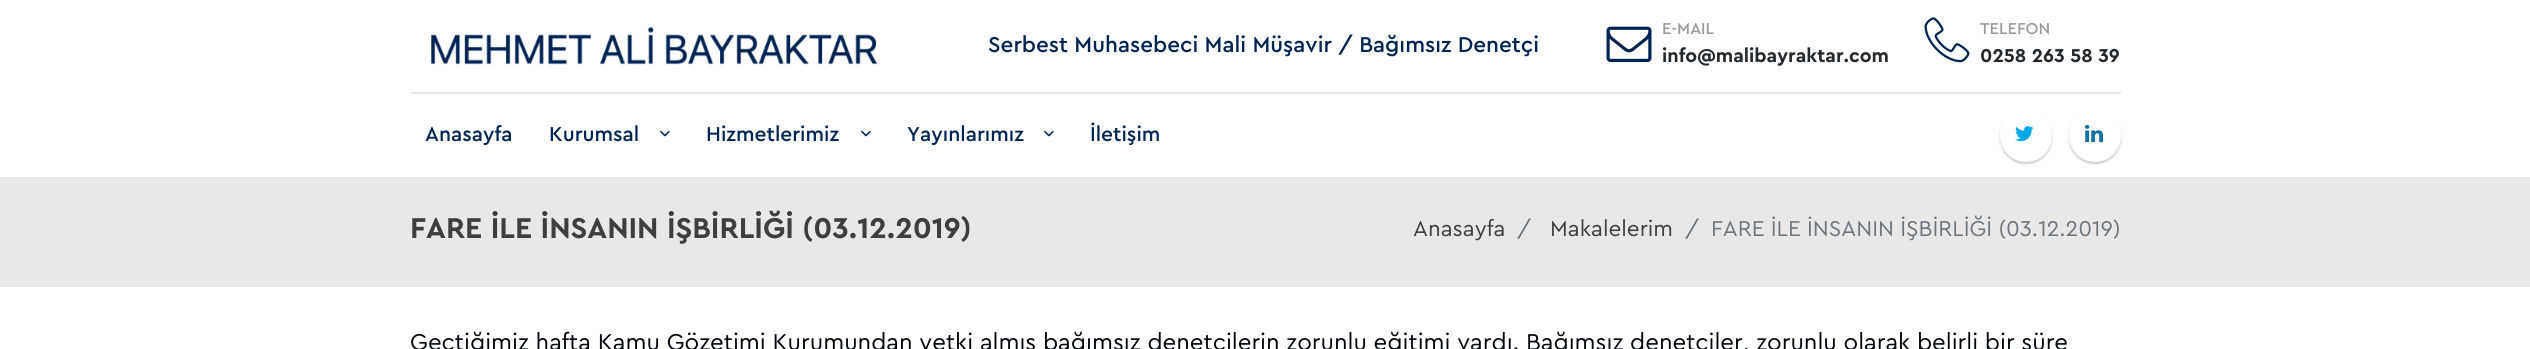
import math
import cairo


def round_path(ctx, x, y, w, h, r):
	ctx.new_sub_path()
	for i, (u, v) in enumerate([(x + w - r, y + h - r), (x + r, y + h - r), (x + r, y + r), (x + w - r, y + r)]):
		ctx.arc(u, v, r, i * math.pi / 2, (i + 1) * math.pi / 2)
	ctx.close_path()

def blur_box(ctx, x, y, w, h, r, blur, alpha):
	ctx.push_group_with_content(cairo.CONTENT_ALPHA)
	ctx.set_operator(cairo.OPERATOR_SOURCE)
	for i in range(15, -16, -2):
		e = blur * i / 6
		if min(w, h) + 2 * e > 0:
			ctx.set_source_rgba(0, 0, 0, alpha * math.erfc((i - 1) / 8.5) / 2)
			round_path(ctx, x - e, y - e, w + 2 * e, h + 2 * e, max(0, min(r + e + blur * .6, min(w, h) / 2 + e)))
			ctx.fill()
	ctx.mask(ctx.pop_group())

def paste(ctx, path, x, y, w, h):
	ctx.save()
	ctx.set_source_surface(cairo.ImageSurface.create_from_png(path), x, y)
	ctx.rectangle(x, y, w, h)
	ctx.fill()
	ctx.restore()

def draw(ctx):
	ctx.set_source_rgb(1, 1, 1)
	ctx.paint()
	ctx.set_source_rgb(0.902, 0.902, 0.902)
	ctx.rectangle(411, 92, 1710, 2)
	ctx.fill()
	paste(ctx, 'media/1.png', 431, 27, 447, 38)
	ctx.select_font_face('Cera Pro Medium')
	ctx.set_font_size(22.5)
	ctx.set_source_rgb(0, 0.137, 0.322)
	ctx.move_to(988, 52)
	ctx.show_text('Serbest Muhasebeci Mali Müşavir / Bağımsız Denetçi')
	paste(ctx, 'media/2.png', 1606, 26, 46, 37)
	ctx.set_font_size(16.5)
	ctx.set_source_rgb(0.6, 0.6, 0.6)
	ctx.move_to(1662, 34)
	ctx.show_text('E-MAIL')
	ctx.select_font_face('Cera Pro', cairo.FONT_SLANT_NORMAL, cairo.FONT_WEIGHT_BOLD)
	ctx.set_font_size(19.5)
	ctx.set_source_rgb(0.137, 0.157, 0.176)
	ctx.move_to(1662, 62)
	ctx.show_text('info@malibayraktar.com')
	paste(ctx, 'media/3.png', 1924, 17, 46, 46)
	ctx.select_font_face('Cera Pro Medium')
	ctx.set_font_size(16.5)
	ctx.set_source_rgb(0.6, 0.6, 0.6)
	ctx.move_to(1980, 34)
	ctx.show_text('TELEFON')
	ctx.select_font_face('Cera Pro', cairo.FONT_SLANT_NORMAL, cairo.FONT_WEIGHT_BOLD)
	ctx.set_font_size(19.5)
	ctx.set_source_rgb(0.137, 0.157, 0.176)
	ctx.move_to(1980, 62)
	ctx.show_text('0258 263 58 39')
	ctx.select_font_face('Cera Pro Medium')
	ctx.set_font_size(21)
	ctx.set_source_rgb(0, 0.137, 0.322)
	ctx.move_to(425, 141)
	ctx.show_text('Anasayfa')
	ctx.move_to(549, 141)
	ctx.show_text('Kurumsal')
	paste(ctx, 'media/4.png', 660, 130, 10, 7)
	ctx.move_to(706, 141)
	ctx.show_text('Hizmetlerimiz')
	paste(ctx, 'media/4.png', 861, 130, 10, 7)
	ctx.move_to(907, 141)
	ctx.show_text('Yayınlarımız')
	paste(ctx, 'media/4.png', 1044, 130, 10, 7)
	ctx.move_to(1090, 141)
	ctx.show_text('İletişim')
	ctx.set_source_rgb(0, 0, 0)
	blur_box(ctx, 2000, 110, 52, 54, 26, 1, 0.2)
	ctx.set_source_rgb(1, 1, 1)
	round_path(ctx, 2000, 108, 52, 54, 26)
	ctx.fill()
	paste(ctx, 'media/5.png', 2015, 126, 19, 16)
	ctx.set_source_rgb(0, 0, 0)
	blur_box(ctx, 2069, 110, 52, 54, 26, 1, 0.2)
	ctx.set_source_rgb(1, 1, 1)
	round_path(ctx, 2069, 108, 52, 54, 26)
	ctx.fill()
	paste(ctx, 'media/6.png', 2085, 124, 18, 19)
	ctx.set_source_rgb(0.91, 0.91, 0.91)
	ctx.rectangle(0, 177, 2530, 110)
	ctx.fill()
	ctx.select_font_face('Cera Pro', cairo.FONT_SLANT_NORMAL, cairo.FONT_WEIGHT_BOLD)
	ctx.set_font_size(30)
	ctx.set_source_rgb(0.243, 0.243, 0.243)
	ctx.move_to(410, 238)
	ctx.show_text('FARE İLE İNSANIN İŞBİRLİĞİ (03.12.2019)')
	ctx.select_font_face('Cera Pro')
	ctx.set_font_size(22.5)
	ctx.move_to(1413, 236)
	ctx.show_text('Anasayfa')
	ctx.set_source_rgb(0.424, 0.459, 0.49)
	ctx.move_to(1517, 236)
	ctx.show_text('/')
	ctx.set_source_rgb(0.243, 0.243, 0.243)
	ctx.move_to(1550, 236)
	ctx.show_text('Makalelerim')
	ctx.set_source_rgb(0.424, 0.459, 0.49)
	ctx.move_to(1685, 236)
	ctx.show_text('/')
	ctx.move_to(1711, 236)
	ctx.show_text('FARE İLE İNSANIN İŞBİRLİĞİ (03.12.2019)')
	ctx.set_font_size(24)
	ctx.set_source_rgb(0, 0.02, 0.043)
	ctx.move_to(410, 350)
	ctx.show_text('Geçtiğimiz hafta Kamu Gözetimi Kurumundan yetki almış bağımsız denetçilerin zorunlu eğitimi vardı. Bağımsız denetçiler, zorunlu olarak belirli bir süre')


surface = cairo.ImageSurface(cairo.FORMAT_RGB24, 2530, 349)
ctx = cairo.Context(surface)
options = cairo.FontOptions()
options.set_hint_metrics(cairo.HINT_METRICS_OFF)
options.set_hint_style(cairo.HINT_STYLE_NONE)
ctx.set_font_options(options)
ctx.set_miter_limit(4)
draw(ctx)
surface.write_to_png('image.png')
